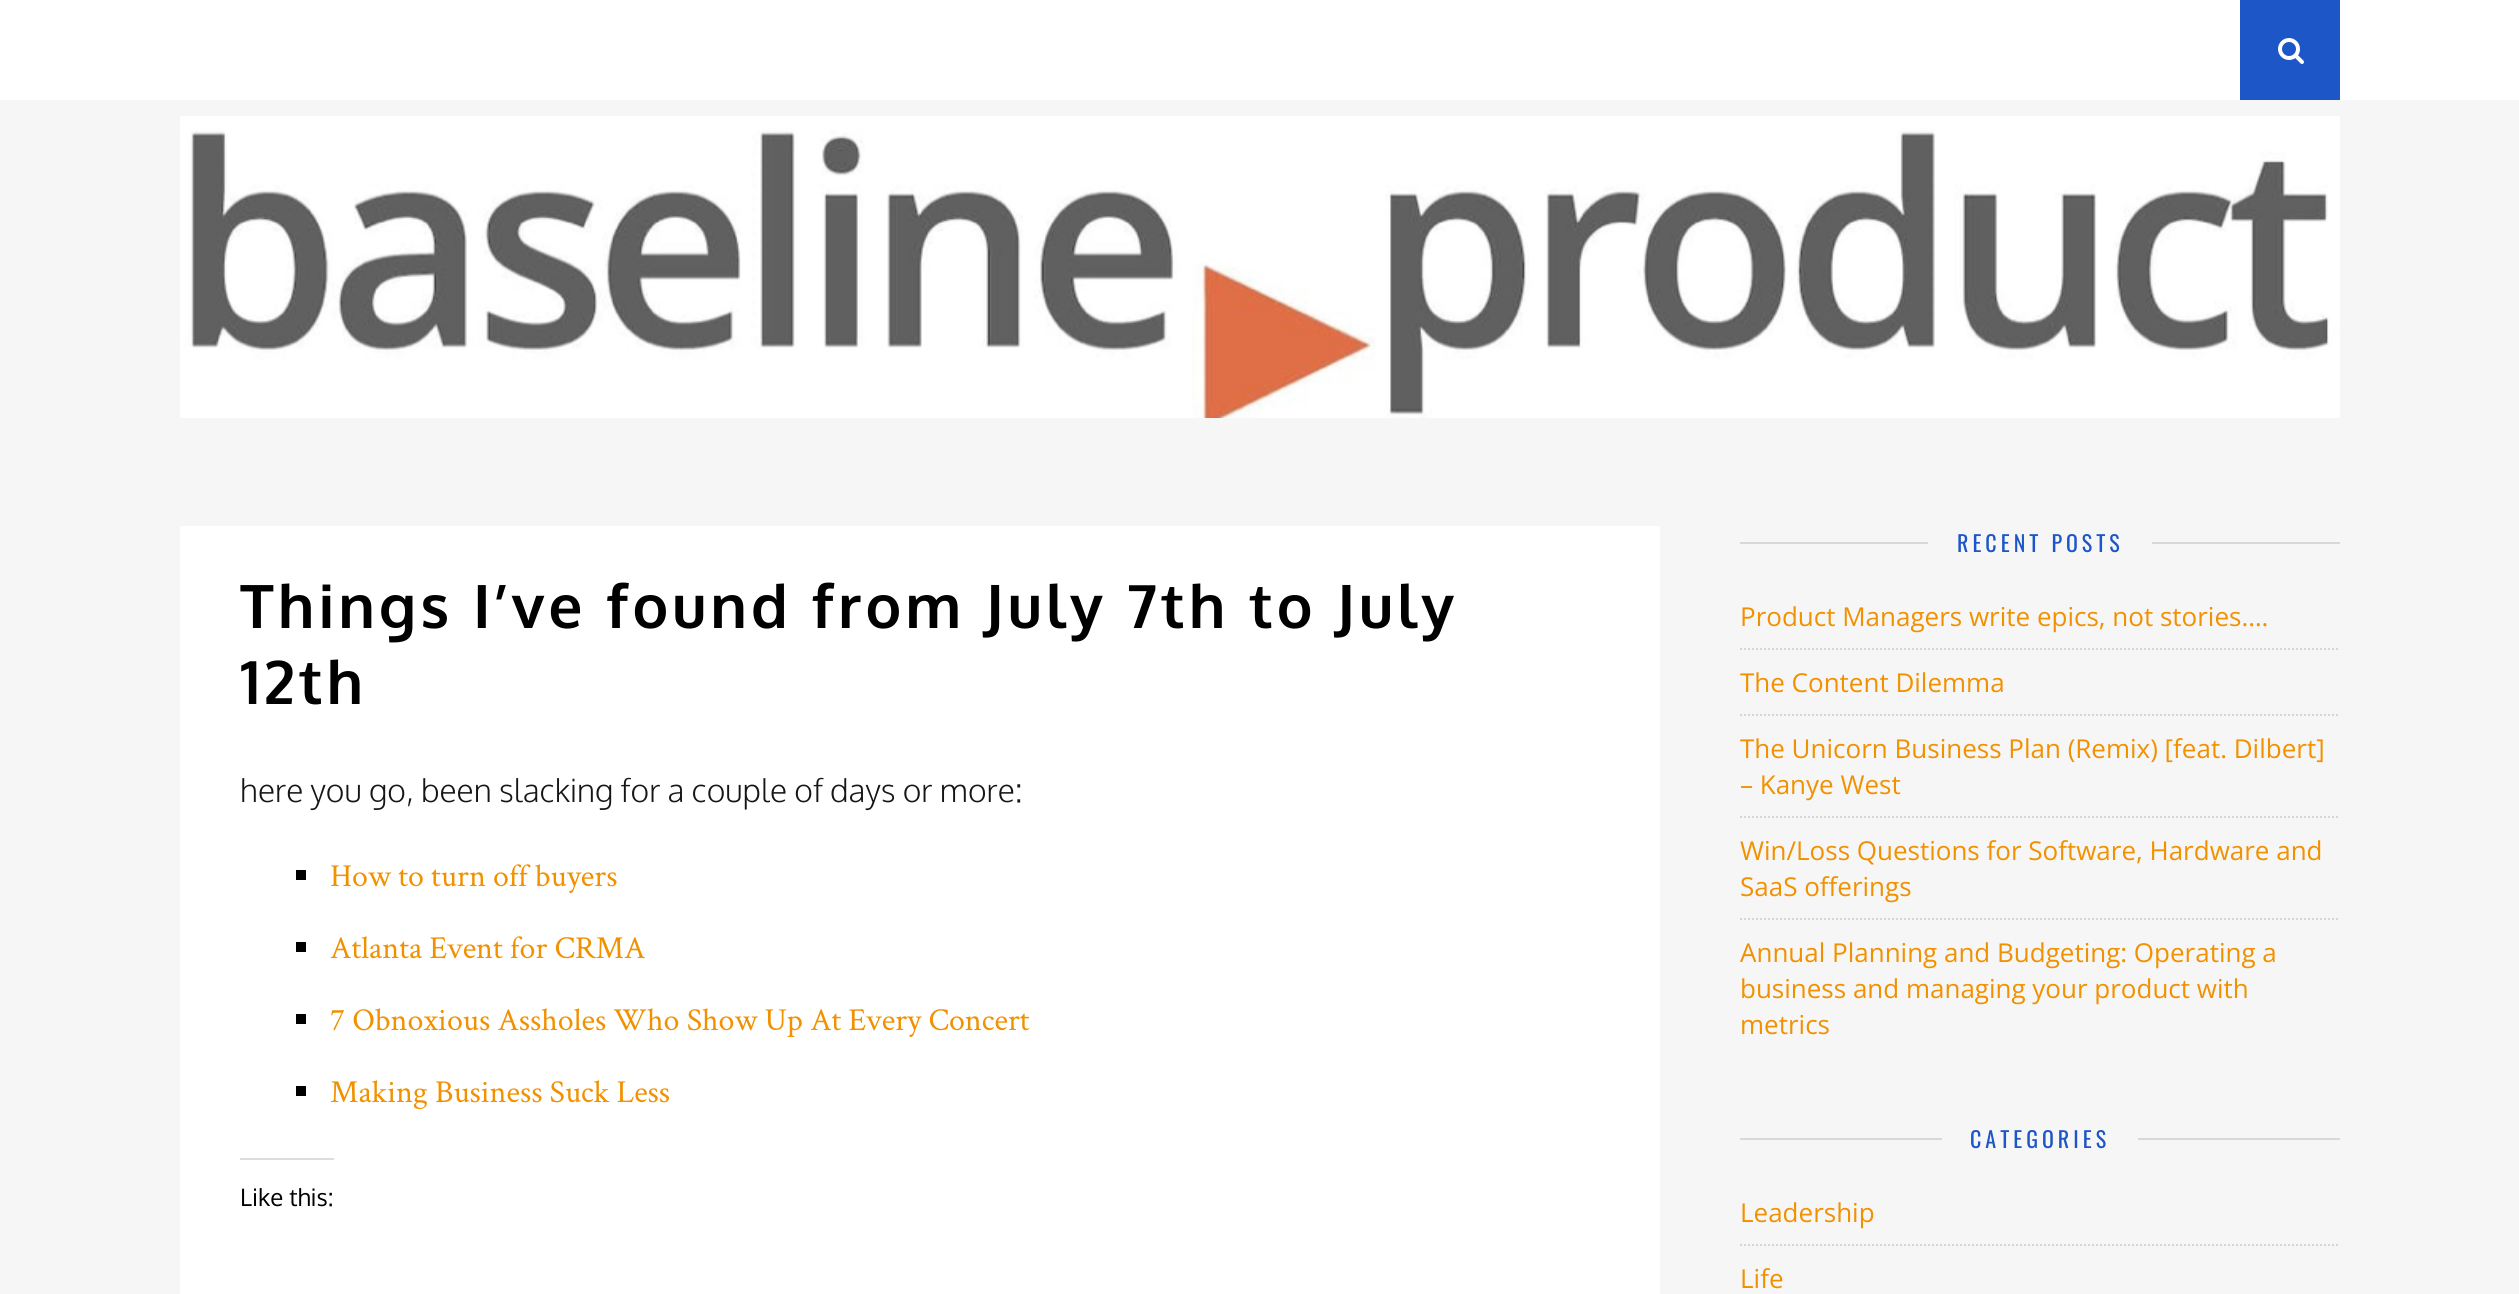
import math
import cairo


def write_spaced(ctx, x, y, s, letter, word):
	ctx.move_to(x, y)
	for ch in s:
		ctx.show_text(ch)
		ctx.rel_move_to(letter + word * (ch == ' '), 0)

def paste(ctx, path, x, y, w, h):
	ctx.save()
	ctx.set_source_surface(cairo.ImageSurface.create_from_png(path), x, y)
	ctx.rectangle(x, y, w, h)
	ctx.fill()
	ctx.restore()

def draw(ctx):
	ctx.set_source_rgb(0.961, 0.961, 0.961)
	ctx.paint()
	ctx.set_source_rgb(1, 1, 1)
	ctx.rectangle(0, 0, 2519, 100)
	ctx.fill()
	ctx.set_source_rgb(0.114, 0.337, 0.776)
	ctx.rectangle(2240, 0, 100, 100)
	ctx.fill()
	paste(ctx, 'media/1.png', 2278, 38, 26, 26)
	paste(ctx, 'media/2.png', 180, 116, 2160, 302)
	ctx.set_source_rgb(1, 1, 1)
	ctx.rectangle(180, 526, 1480, 768)
	ctx.fill()
	ctx.select_font_face('Oxygen', cairo.FONT_SLANT_NORMAL, cairo.FONT_WEIGHT_BOLD)
	ctx.set_font_size(60)
	ctx.set_source_rgb(0, 0, 0)
	write_spaced(ctx, 240, 628, 'Things I’ve found from July 7th to July', 4, 0)
	write_spaced(ctx, 240, 704, '12th', 4, 0)
	ctx.select_font_face('Oxygen Light')
	ctx.set_font_size(32)
	ctx.set_source_rgb(0.086, 0.086, 0.086)
	ctx.move_to(240, 802)
	ctx.show_text('here you go, been slacking for a couple of days or more:')
	ctx.set_source_rgb(0, 0, 0)
	ctx.rectangle(296, 870, 10, 10)
	ctx.fill()
	ctx.select_font_face('Crimson Text')
	ctx.set_source_rgb(0.949, 0.569, 0)
	ctx.move_to(330, 886)
	ctx.show_text('How to turn off buyers')
	ctx.set_source_rgb(0, 0, 0)
	ctx.rectangle(296, 942, 10, 10)
	ctx.fill()
	ctx.set_source_rgb(0.949, 0.569, 0)
	ctx.move_to(330, 958)
	ctx.show_text('Atlanta Event for CRMA')
	ctx.set_source_rgb(0, 0, 0)
	ctx.rectangle(296, 1014, 10, 10)
	ctx.fill()
	ctx.set_source_rgb(0.949, 0.569, 0)
	ctx.move_to(330, 1030)
	ctx.show_text('7 Obnoxious Assholes Who Show Up At Every Concert')
	ctx.set_source_rgb(0, 0, 0)
	ctx.rectangle(296, 1086, 10, 10)
	ctx.fill()
	ctx.set_source_rgb(0.949, 0.569, 0)
	ctx.move_to(330, 1102)
	ctx.show_text('Making Business Suck Less')
	ctx.set_source_rgb(0.863, 0.863, 0.871)
	ctx.rectangle(240, 1158, 94, 2)
	ctx.fill()
	ctx.select_font_face('Oxygen')
	ctx.set_font_size(24)
	ctx.set_source_rgb(0, 0, 0)
	ctx.move_to(240, 1206)
	ctx.show_text('Like this:')
	ctx.set_source_rgb(0.847, 0.847, 0.847)
	ctx.rectangle(1740, 542, 188, 2)
	ctx.fill()
	ctx.select_font_face('Oswald')
	ctx.set_font_size(22)
	ctx.set_source_rgb(0.114, 0.337, 0.776)
	write_spaced(ctx, 1957, 552, 'RECENT POSTS', 4, 0)
	ctx.set_source_rgb(0.847, 0.847, 0.847)
	ctx.rectangle(2152, 542, 188, 2)
	ctx.fill()
	ctx.new_path()
	ctx.move_to(1740, 649)
	ctx.line_to(2340, 649)
	ctx.set_source_rgb(0.835, 0.835, 0.835)
	ctx.set_dash([2, 2])
	ctx.stroke()
	ctx.select_font_face('Open Sans')
	ctx.set_font_size(26)
	ctx.set_source_rgb(0.949, 0.569, 0)
	ctx.move_to(1740, 626)
	ctx.show_text('Product Managers write epics, not stories….')
	ctx.new_path()
	ctx.move_to(1740, 715)
	ctx.line_to(2340, 715)
	ctx.set_source_rgb(0.835, 0.835, 0.835)
	ctx.stroke()
	ctx.set_source_rgb(0.949, 0.569, 0)
	ctx.move_to(1740, 692)
	ctx.show_text('The Content Dilemma')
	ctx.new_path()
	ctx.move_to(1740, 817)
	ctx.line_to(2340, 817)
	ctx.set_source_rgb(0.835, 0.835, 0.835)
	ctx.stroke()
	ctx.set_source_rgb(0.949, 0.569, 0)
	ctx.move_to(1740, 758)
	ctx.show_text('The Unicorn Business Plan (Remix) [feat. Dilbert]')
	ctx.move_to(1740, 794)
	ctx.show_text('– Kanye West')
	ctx.new_path()
	ctx.move_to(1740, 919)
	ctx.line_to(2340, 919)
	ctx.set_source_rgb(0.835, 0.835, 0.835)
	ctx.stroke()
	ctx.set_source_rgb(0.949, 0.569, 0)
	for x, y, s in [
		(1740, 860, 'Win/Loss Questions for Software, Hardware and'),
		(1740, 896, 'SaaS offerings'),
		(1740, 962, 'Annual Planning and Budgeting: Operating a'),
		(1740, 998, 'business and managing your product with'),
		(1740, 1034, 'metrics'),
	]:
		ctx.move_to(x, y)
		ctx.show_text(s)
	ctx.set_source_rgb(0.847, 0.847, 0.847)
	ctx.rectangle(1740, 1138, 202, 2)
	ctx.fill()
	ctx.select_font_face('Oswald')
	ctx.set_font_size(22)
	ctx.set_source_rgb(0.114, 0.337, 0.776)
	write_spaced(ctx, 1970, 1148, 'CATEGORIES', 4, 0)
	ctx.set_source_rgb(0.847, 0.847, 0.847)
	ctx.rectangle(2138, 1138, 202, 2)
	ctx.fill()
	ctx.new_path()
	ctx.move_to(1740, 1245)
	ctx.line_to(2340, 1245)
	ctx.set_source_rgb(0.835, 0.835, 0.835)
	ctx.stroke()
	ctx.select_font_face('Open Sans')
	ctx.set_font_size(26)
	ctx.set_source_rgb(0.949, 0.569, 0)
	ctx.move_to(1740, 1222)
	ctx.show_text('Leadership')
	ctx.move_to(1740, 1288)
	ctx.show_text('Life')


surface = cairo.ImageSurface(cairo.FORMAT_RGB24, 2519, 1294)
ctx = cairo.Context(surface)
options = cairo.FontOptions()
options.set_hint_metrics(cairo.HINT_METRICS_OFF)
options.set_hint_style(cairo.HINT_STYLE_NONE)
ctx.set_font_options(options)
ctx.set_miter_limit(4)
draw(ctx)
surface.write_to_png('image.png')
